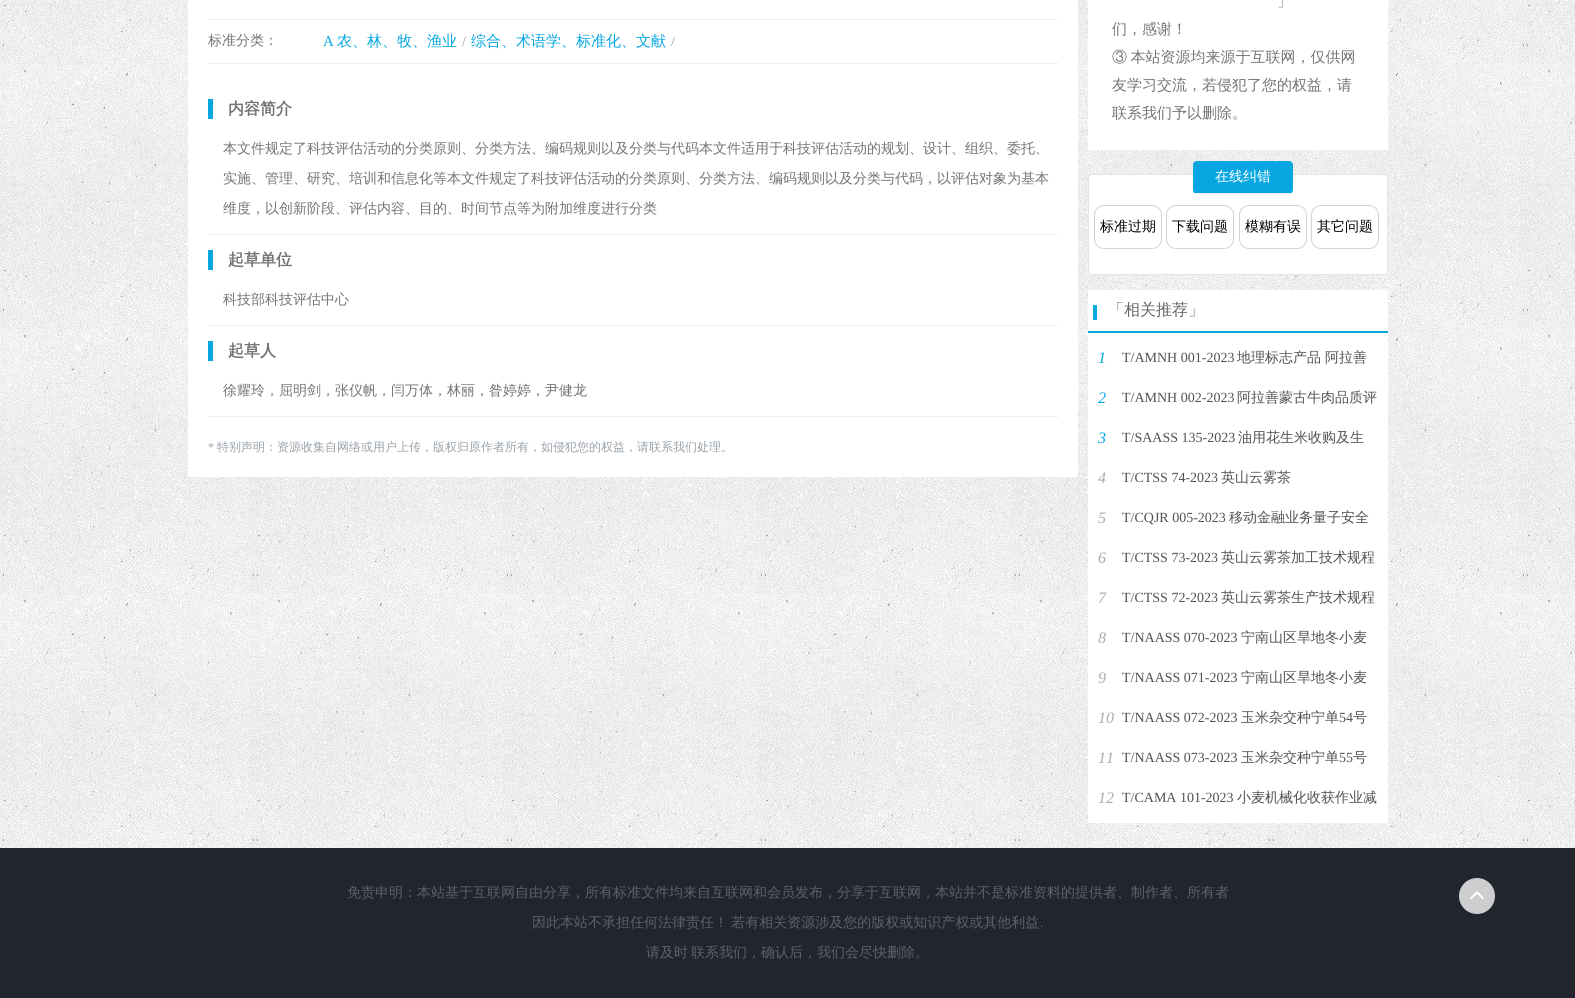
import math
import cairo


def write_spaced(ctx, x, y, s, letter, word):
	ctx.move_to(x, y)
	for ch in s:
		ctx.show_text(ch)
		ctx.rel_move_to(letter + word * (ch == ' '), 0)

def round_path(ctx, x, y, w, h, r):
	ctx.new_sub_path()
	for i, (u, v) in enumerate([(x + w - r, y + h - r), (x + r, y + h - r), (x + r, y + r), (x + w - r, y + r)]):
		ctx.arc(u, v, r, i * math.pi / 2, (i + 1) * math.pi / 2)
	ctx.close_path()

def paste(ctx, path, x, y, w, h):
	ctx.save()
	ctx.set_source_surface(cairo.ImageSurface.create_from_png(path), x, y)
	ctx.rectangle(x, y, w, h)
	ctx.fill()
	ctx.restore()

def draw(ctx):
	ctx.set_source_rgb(1, 1, 1)
	ctx.paint()
	paste(ctx, 'media/1.png', 0, 0, 1575, 848)
	ctx.set_source_rgb(1, 1, 1)
	ctx.rectangle(188, 0, 890, 477)
	ctx.fill()
	ctx.set_source_rgb(0.933, 0.933, 0.933)
	ctx.rectangle(208, 19, 850, 1)
	ctx.rectangle(208, 63, 850, 1)
	ctx.fill()
	ctx.select_font_face('WenQuanYi Zen Hei Medium')
	ctx.set_font_size(14)
	ctx.set_source_rgb(0.455, 0.455, 0.455)
	ctx.move_to(208, 45)
	ctx.show_text('标准分类：')
	ctx.select_font_face('Liberation Serif')
	ctx.set_font_size(15)
	ctx.set_source_rgb(0.027, 0.655, 0.882)
	ctx.move_to(323, 46)
	ctx.show_text('A')
	ctx.select_font_face('WenQuanYi Zen Hei Medium')
	ctx.move_to(337, 46)
	ctx.show_text('农、林、牧、渔业')
	ctx.select_font_face('Liberation Serif')
	ctx.set_font_size(14)
	ctx.set_source_rgb(0.6, 0.6, 0.6)
	ctx.move_to(462, 46)
	ctx.show_text('/')
	ctx.select_font_face('WenQuanYi Zen Hei Medium')
	ctx.set_font_size(15)
	ctx.set_source_rgb(0.027, 0.655, 0.882)
	ctx.move_to(471, 46)
	ctx.show_text('综合、术语学、标准化、文献')
	ctx.select_font_face('Liberation Serif')
	ctx.set_font_size(14)
	ctx.set_source_rgb(0.6, 0.6, 0.6)
	ctx.move_to(671, 46)
	ctx.show_text('/')
	ctx.set_source_rgb(0.933, 0.933, 0.933)
	ctx.rectangle(208, 234, 850, 1)
	ctx.fill()
	ctx.set_source_rgb(0.027, 0.655, 0.882)
	ctx.rectangle(208, 99, 5, 20)
	ctx.fill()
	ctx.select_font_face('WenQuanYi Zen Hei', cairo.FONT_SLANT_NORMAL, cairo.FONT_WEIGHT_BOLD)
	ctx.set_font_size(16)
	ctx.set_source_rgb(0.455, 0.455, 0.455)
	ctx.move_to(228, 114)
	ctx.show_text('内容简介')
	ctx.select_font_face('WenQuanYi Zen Hei Medium')
	ctx.set_font_size(14)
	for x, y, s in [
		(223, 153, '本文件规定了科技评估活动的分类原则、分类方法、编码规则以及分类与代码本文件适用于科技评估活动的规划、设计、组织、委托、'),
		(223, 183, '实施、管理、研究、培训和信息化等本文件规定了科技评估活动的分类原则、分类方法、编码规则以及分类与代码，以评估对象为基本'),
		(223, 213, '维度，以创新阶段、评估内容、目的、时间节点等为附加维度进行分类'),
	]:
		ctx.move_to(x, y)
		ctx.show_text(s)
	ctx.set_source_rgb(0.933, 0.933, 0.933)
	ctx.rectangle(208, 325, 850, 1)
	ctx.fill()
	ctx.set_source_rgb(0.027, 0.655, 0.882)
	ctx.rectangle(208, 250, 5, 20)
	ctx.fill()
	ctx.select_font_face('WenQuanYi Zen Hei', cairo.FONT_SLANT_NORMAL, cairo.FONT_WEIGHT_BOLD)
	ctx.set_font_size(16)
	ctx.set_source_rgb(0.455, 0.455, 0.455)
	ctx.move_to(228, 265)
	ctx.show_text('起草单位')
	ctx.select_font_face('WenQuanYi Zen Hei Medium')
	ctx.set_font_size(14)
	ctx.move_to(223, 304)
	ctx.show_text('科技部科技评估中心')
	ctx.set_source_rgb(0.933, 0.933, 0.933)
	ctx.rectangle(208, 416, 850, 1)
	ctx.fill()
	ctx.set_source_rgb(0.027, 0.655, 0.882)
	ctx.rectangle(208, 341, 5, 20)
	ctx.fill()
	ctx.select_font_face('WenQuanYi Zen Hei', cairo.FONT_SLANT_NORMAL, cairo.FONT_WEIGHT_BOLD)
	ctx.set_font_size(16)
	ctx.set_source_rgb(0.455, 0.455, 0.455)
	ctx.move_to(228, 356)
	ctx.show_text('起草人')
	ctx.select_font_face('WenQuanYi Zen Hei Medium')
	ctx.set_font_size(14)
	ctx.move_to(223, 395)
	ctx.show_text('徐耀玲，屈明剑，张仪帆，闫万体，林丽，昝婷婷，尹健龙')
	ctx.select_font_face('Liberation Serif')
	ctx.set_font_size(12)
	ctx.set_source_rgb(0.6, 0.635, 0.667)
	ctx.move_to(208, 451)
	ctx.show_text('*')
	ctx.select_font_face('WenQuanYi Zen Hei Medium')
	ctx.move_to(217, 451)
	ctx.show_text('特别声明：资源收集自网络或用户上传，版权归原作者所有，如侵犯您的权益，请联系我们处理。')
	ctx.set_source_rgb(1, 1, 1)
	ctx.rectangle(1088, 0, 300, 150)
	ctx.fill()
	ctx.set_font_size(15)
	ctx.set_source_rgb(0.455, 0.455, 0.455)
	ctx.move_to(1277, 6)
	ctx.show_text('」')
	ctx.move_to(1112, 34)
	ctx.show_text('们，感谢！')
	write_spaced(ctx, 1112, 62, '③ 本站资源均来源于互联网，仅供网', 0, -1)
	ctx.move_to(1112, 90)
	ctx.show_text('友学习交流，若侵犯了您的权益，请')
	ctx.move_to(1112, 118)
	ctx.show_text('联系我们予以删除。')
	ctx.set_source_rgb(1, 1, 1)
	round_path(ctx, 1088.5, 174.5, 299, 100, 3.5)
	ctx.fill_preserve()
	ctx.set_source_rgb(0.898, 0.898, 0.898)
	ctx.set_line_width(1)
	ctx.stroke()
	ctx.set_source_rgb(0.027, 0.655, 0.882)
	round_path(ctx, 1193, 161, 100, 33, 4)
	ctx.fill()
	ctx.set_source_rgb(0.922, 0.922, 0.922)
	ctx.rectangle(1195, 193, 96, 1)
	ctx.fill()
	ctx.set_font_size(14)
	ctx.set_source_rgb(1, 1, 1)
	ctx.move_to(1215, 181)
	ctx.show_text('在线纠错')
	round_path(ctx, 1094.5, 205.5, 67, 43, 9.5)
	ctx.set_source_rgb(0.827, 0.827, 0.82)
	ctx.stroke()
	ctx.set_source_rgb(0, 0, 0)
	ctx.move_to(1100, 231)
	ctx.show_text('标准过期')
	round_path(ctx, 1166.5, 205.5, 67, 43, 9.5)
	ctx.set_source_rgb(0.827, 0.827, 0.82)
	ctx.stroke()
	ctx.set_source_rgb(0, 0, 0)
	ctx.move_to(1172, 231)
	ctx.show_text('下载问题')
	round_path(ctx, 1239.5, 205.5, 67, 43, 9.5)
	ctx.set_source_rgb(0.827, 0.827, 0.82)
	ctx.stroke()
	ctx.set_source_rgb(0, 0, 0)
	ctx.move_to(1245, 231)
	ctx.show_text('模糊有误')
	round_path(ctx, 1311.5, 205.5, 67, 43, 9.5)
	ctx.set_source_rgb(0.827, 0.827, 0.82)
	ctx.stroke()
	ctx.set_source_rgb(0, 0, 0)
	ctx.move_to(1317, 231)
	ctx.show_text('其它问题')
	ctx.set_source_rgb(1, 1, 1)
	ctx.rectangle(1088, 290, 300, 533)
	ctx.fill()
	ctx.set_source_rgb(0.027, 0.655, 0.882)
	ctx.rectangle(1093, 305, 4, 15)
	ctx.rectangle(1088, 331, 300, 2)
	ctx.fill()
	ctx.set_font_size(16)
	ctx.set_source_rgb(0.4, 0.4, 0.4)
	ctx.move_to(1108, 315)
	ctx.show_text('「相关推荐」')
	ctx.select_font_face('Liberation Serif', cairo.FONT_SLANT_ITALIC)
	ctx.set_source_rgb(0.027, 0.655, 0.882)
	ctx.move_to(1098, 363)
	ctx.show_text('1')
	ctx.select_font_face('Liberation Serif')
	ctx.set_font_size(14)
	ctx.set_source_rgb(0.322, 0.322, 0.322)
	ctx.move_to(1122, 362)
	ctx.show_text('T/AMNH 001-2023')
	ctx.select_font_face('WenQuanYi Zen Hei Medium')
	ctx.move_to(1237, 362)
	ctx.show_text('地理标志产品')
	ctx.move_to(1325, 362)
	ctx.show_text('阿拉善')
	ctx.select_font_face('Liberation Serif', cairo.FONT_SLANT_ITALIC)
	ctx.set_font_size(16)
	ctx.set_source_rgb(0.027, 0.655, 0.882)
	ctx.move_to(1098, 403)
	ctx.show_text('2')
	ctx.select_font_face('Liberation Serif')
	ctx.set_font_size(14)
	ctx.set_source_rgb(0.322, 0.322, 0.322)
	ctx.move_to(1122, 402)
	ctx.show_text('T/AMNH 002-2023')
	ctx.select_font_face('WenQuanYi Zen Hei Medium')
	ctx.move_to(1237, 402)
	ctx.show_text('阿拉善蒙古牛肉品质评')
	ctx.save()
	ctx.rectangle(1098, 418, 280, 40)
	ctx.clip()
	ctx.select_font_face('Liberation Serif', cairo.FONT_SLANT_ITALIC)
	ctx.set_font_size(16)
	ctx.set_source_rgb(0.027, 0.655, 0.882)
	ctx.move_to(1098, 443)
	ctx.show_text('3')
	ctx.restore()
	ctx.select_font_face('Liberation Serif')
	ctx.move_to(1122, 442)
	ctx.show_text('T/SAASS 135-2023')
	ctx.select_font_face('WenQuanYi Zen Hei Medium')
	ctx.move_to(1238, 442)
	ctx.show_text('油用花生米收购及生')
	ctx.select_font_face('Liberation Serif', cairo.FONT_SLANT_ITALIC)
	ctx.set_font_size(16)
	ctx.set_source_rgb(0.667, 0.667, 0.667)
	ctx.move_to(1098, 483)
	ctx.show_text('4')
	ctx.select_font_face('Liberation Serif')
	ctx.set_font_size(14)
	ctx.set_source_rgb(0.322, 0.322, 0.322)
	ctx.move_to(1122, 482)
	ctx.show_text('T/CTSS 74-2023')
	ctx.select_font_face('WenQuanYi Zen Hei Medium')
	ctx.move_to(1221, 482)
	ctx.show_text('英山云雾茶')
	ctx.select_font_face('Liberation Serif', cairo.FONT_SLANT_ITALIC)
	ctx.set_font_size(16)
	ctx.set_source_rgb(0.667, 0.667, 0.667)
	ctx.move_to(1098, 523)
	ctx.show_text('5')
	ctx.select_font_face('Liberation Serif')
	ctx.set_font_size(14)
	ctx.set_source_rgb(0.322, 0.322, 0.322)
	ctx.move_to(1122, 522)
	ctx.show_text('T/CQJR 005-2023')
	ctx.select_font_face('WenQuanYi Zen Hei Medium')
	ctx.move_to(1229, 522)
	ctx.show_text('移动金融业务量子安全')
	ctx.select_font_face('Liberation Serif', cairo.FONT_SLANT_ITALIC)
	ctx.set_font_size(16)
	ctx.set_source_rgb(0.667, 0.667, 0.667)
	ctx.move_to(1098, 563)
	ctx.show_text('6')
	ctx.select_font_face('Liberation Serif')
	ctx.set_font_size(14)
	ctx.set_source_rgb(0.322, 0.322, 0.322)
	ctx.move_to(1122, 562)
	ctx.show_text('T/CTSS 73-2023')
	ctx.select_font_face('WenQuanYi Zen Hei Medium')
	ctx.move_to(1221, 562)
	ctx.show_text('英山云雾茶加工技术规程')
	ctx.select_font_face('Liberation Serif', cairo.FONT_SLANT_ITALIC)
	ctx.set_font_size(16)
	ctx.set_source_rgb(0.667, 0.667, 0.667)
	ctx.move_to(1098, 603)
	ctx.show_text('7')
	ctx.select_font_face('Liberation Serif')
	ctx.set_font_size(14)
	ctx.set_source_rgb(0.322, 0.322, 0.322)
	ctx.move_to(1122, 602)
	ctx.show_text('T/CTSS 72-2023')
	ctx.select_font_face('WenQuanYi Zen Hei Medium')
	ctx.move_to(1221, 602)
	ctx.show_text('英山云雾茶生产技术规程')
	ctx.select_font_face('Liberation Serif', cairo.FONT_SLANT_ITALIC)
	ctx.set_font_size(16)
	ctx.set_source_rgb(0.667, 0.667, 0.667)
	ctx.move_to(1098, 643)
	ctx.show_text('8')
	ctx.select_font_face('Liberation Serif')
	ctx.set_font_size(14)
	ctx.set_source_rgb(0.322, 0.322, 0.322)
	ctx.move_to(1122, 642)
	ctx.show_text('T/NAASS 070-2023')
	ctx.select_font_face('WenQuanYi Zen Hei Medium')
	ctx.move_to(1241, 642)
	ctx.show_text('宁南山区旱地冬小麦')
	ctx.select_font_face('Liberation Serif', cairo.FONT_SLANT_ITALIC)
	ctx.set_font_size(16)
	ctx.set_source_rgb(0.667, 0.667, 0.667)
	ctx.move_to(1098, 683)
	ctx.show_text('9')
	ctx.select_font_face('Liberation Serif')
	ctx.set_font_size(14)
	ctx.set_source_rgb(0.322, 0.322, 0.322)
	ctx.move_to(1122, 682)
	ctx.show_text('T/NAASS 071-2023')
	ctx.select_font_face('WenQuanYi Zen Hei Medium')
	ctx.move_to(1241, 682)
	ctx.show_text('宁南山区旱地冬小麦')
	ctx.select_font_face('Liberation Serif', cairo.FONT_SLANT_ITALIC)
	ctx.set_font_size(16)
	ctx.set_source_rgb(0.667, 0.667, 0.667)
	ctx.move_to(1098, 723)
	ctx.show_text('10')
	ctx.select_font_face('Liberation Serif')
	ctx.set_font_size(14)
	ctx.set_source_rgb(0.322, 0.322, 0.322)
	ctx.move_to(1122, 722)
	ctx.show_text('T/NAASS 072-2023')
	ctx.select_font_face('WenQuanYi Zen Hei Medium')
	ctx.move_to(1241, 722)
	ctx.show_text('玉米杂交种宁单')
	ctx.select_font_face('Liberation Serif')
	ctx.move_to(1339, 722)
	ctx.show_text('54')
	ctx.select_font_face('WenQuanYi Zen Hei Medium')
	ctx.move_to(1353, 722)
	ctx.show_text('号')
	ctx.select_font_face('Liberation Serif', cairo.FONT_SLANT_ITALIC)
	ctx.set_font_size(16)
	ctx.set_source_rgb(0.667, 0.667, 0.667)
	ctx.move_to(1098, 763)
	ctx.show_text('11')
	ctx.select_font_face('Liberation Serif')
	ctx.set_font_size(14)
	ctx.set_source_rgb(0.322, 0.322, 0.322)
	ctx.move_to(1122, 762)
	ctx.show_text('T/NAASS 073-2023')
	ctx.select_font_face('WenQuanYi Zen Hei Medium')
	ctx.move_to(1241, 762)
	ctx.show_text('玉米杂交种宁单')
	ctx.select_font_face('Liberation Serif')
	ctx.move_to(1339, 762)
	ctx.show_text('55')
	ctx.select_font_face('WenQuanYi Zen Hei Medium')
	ctx.move_to(1353, 762)
	ctx.show_text('号')
	ctx.select_font_face('Liberation Serif', cairo.FONT_SLANT_ITALIC)
	ctx.set_font_size(16)
	ctx.set_source_rgb(0.667, 0.667, 0.667)
	ctx.move_to(1098, 803)
	ctx.show_text('12')
	ctx.select_font_face('Liberation Serif')
	ctx.set_font_size(14)
	ctx.set_source_rgb(0.322, 0.322, 0.322)
	ctx.move_to(1122, 802)
	ctx.show_text('T/CAMA 101-2023')
	ctx.select_font_face('WenQuanYi Zen Hei Medium')
	ctx.move_to(1237, 802)
	ctx.show_text('小麦机械化收获作业减')
	ctx.set_source_rgb(0.133, 0.145, 0.18)
	ctx.rectangle(0, 848, 1575, 150)
	ctx.fill()
	ctx.set_source_rgb(0.369, 0.38, 0.4)
	ctx.move_to(347, 897)
	ctx.show_text('免责申明：本站基于互联网自由分享，所有标准文件均来自互联网和会员发布，分享于互联网，本站并不是标准资料的提供者、制作者、所有者')
	write_spaced(ctx, 532, 927, '因此本站不承担任何法律责任！ 若有相关资源涉及您的版权或知识产权或其他利益', 0, -1)
	ctx.select_font_face('Liberation Serif')
	ctx.move_to(1040, 927)
	ctx.show_text('.')
	ctx.select_font_face('WenQuanYi Zen Hei Medium')
	ctx.move_to(646, 957)
	ctx.show_text('请及时')
	ctx.move_to(691, 957)
	ctx.show_text('联系我们，确认后，我们会尽快删除。')
	paste(ctx, 'media/2.png', 1459, 878, 36, 36)


surface = cairo.ImageSurface(cairo.FORMAT_RGB24, 1575, 998)
ctx = cairo.Context(surface)
options = cairo.FontOptions()
options.set_hint_metrics(cairo.HINT_METRICS_OFF)
options.set_hint_style(cairo.HINT_STYLE_NONE)
ctx.set_font_options(options)
ctx.set_miter_limit(4)
draw(ctx)
surface.write_to_png('image.png')
